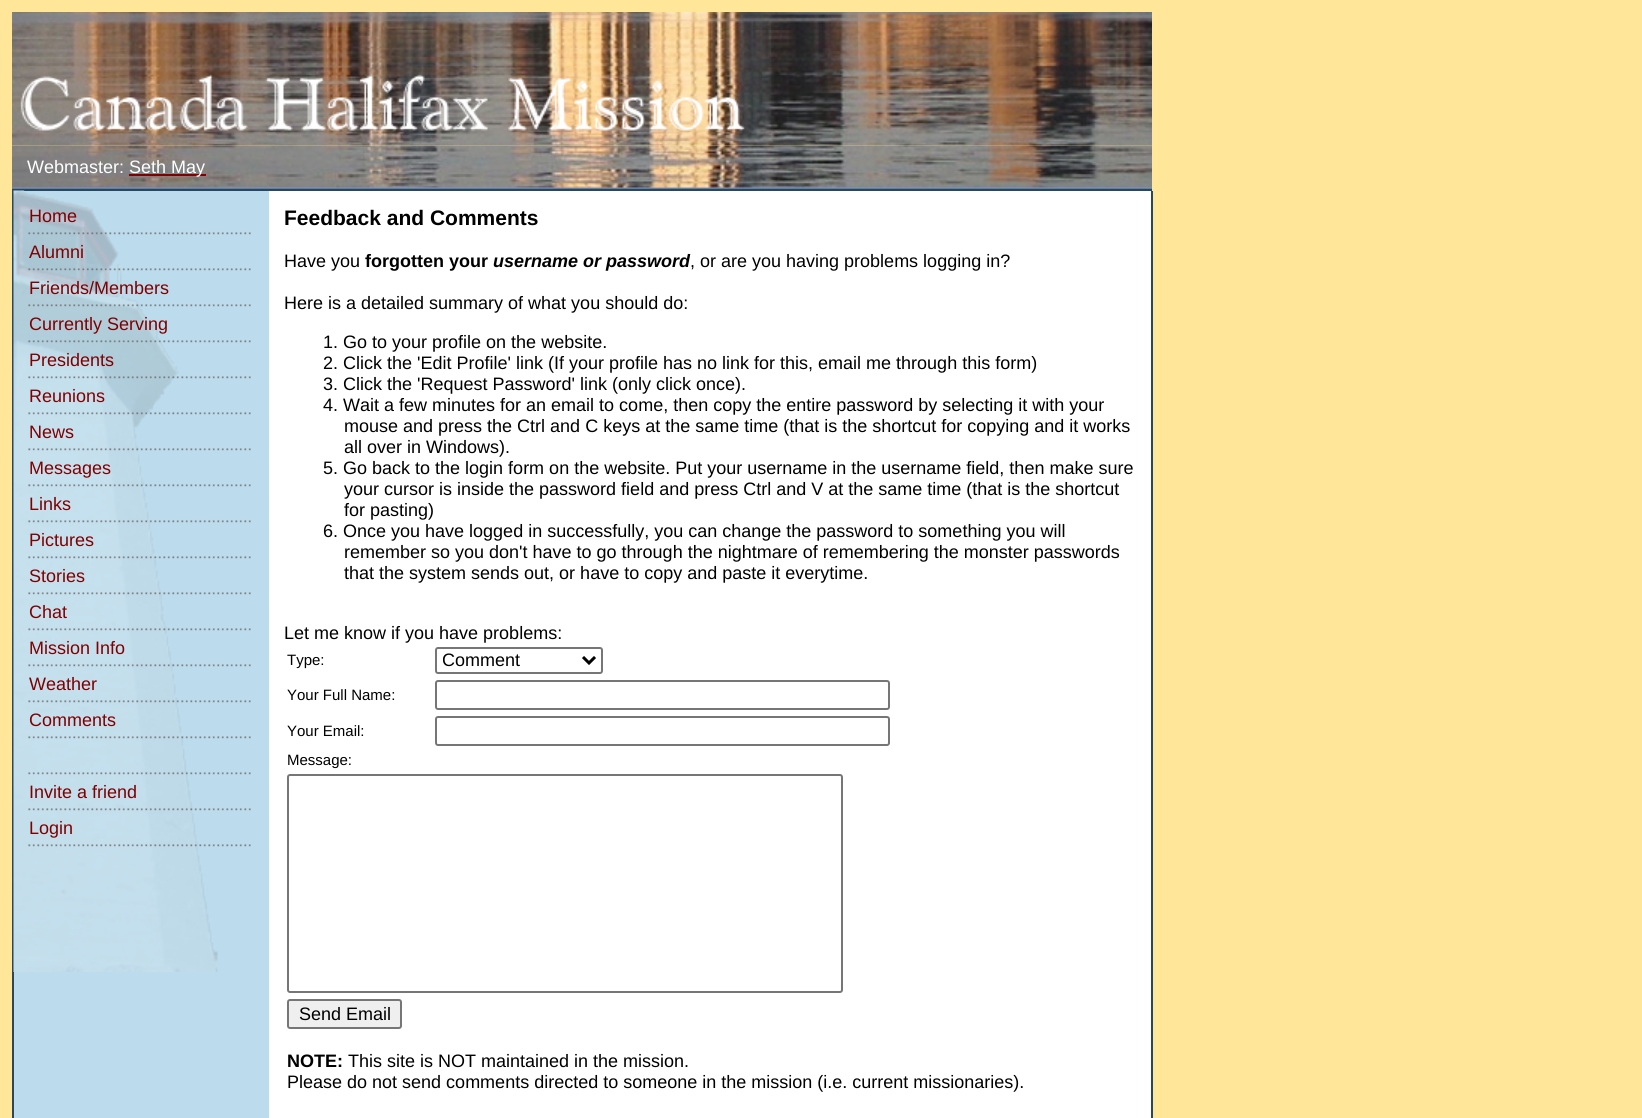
import math
import cairo


def round_path(ctx, x, y, w, h, r):
	ctx.new_sub_path()
	for i, (u, v) in enumerate([(x + w - r, y + h - r), (x + r, y + h - r), (x + r, y + r), (x + w - r, y + r)]):
		ctx.arc(u, v, r, i * math.pi / 2, (i + 1) * math.pi / 2)
	ctx.close_path()

def paste(ctx, path, x, y, w, h):
	ctx.save()
	ctx.set_source_surface(cairo.ImageSurface.create_from_png(path), x, y)
	ctx.rectangle(x, y, w, h)
	ctx.fill()
	ctx.restore()

def draw(ctx):
	ctx.set_source_rgb(1, 0.902, 0.6)
	ctx.paint()
	ctx.set_source_rgb(0.51, 0.569, 0.851)
	ctx.rectangle(12, 187, 1140, 1)
	ctx.fill()
	paste(ctx, 'media/2.png', 12, 145, 255, 43)
	paste(ctx, 'media/3.png', 267, 145, 435, 43)
	paste(ctx, 'media/4.png', 702, 145, 450, 43)
	paste(ctx, 'media/1.png', 12, 12, 1140, 134)
	ctx.select_font_face('Liberation Sans')
	ctx.set_font_size(18)
	ctx.set_source_rgb(1, 1, 1)
	ctx.move_to(27, 173)
	ctx.show_text('Webmaster:')
	ctx.set_source_rgb(0.502, 0, 0)
	ctx.rectangle(129, 174, 77, 2)
	ctx.fill()
	ctx.set_source_rgb(1, 1, 1)
	ctx.move_to(129, 173)
	ctx.show_text('Seth May')
	ctx.set_source_rgb(0.388, 0.494, 0.584)
	ctx.rectangle(12, 188, 1140, 1)
	ctx.fill()
	ctx.set_source_rgb(0.149, 0.282, 0.396)
	ctx.rectangle(12, 189, 1140, 2)
	ctx.rectangle(12, 191, 2, 927)
	ctx.fill()
	ctx.set_source_rgb(0.737, 0.859, 0.922)
	ctx.rectangle(14, 191, 255, 927)
	ctx.fill()
	paste(ctx, 'media/5.png', 13, 190, 205, 782)
	ctx.set_source_rgb(0.502, 0, 0)
	ctx.move_to(29, 222)
	ctx.show_text('Home')
	paste(ctx, 'media/6.png', 28, 232, 223, 3)
	ctx.move_to(29, 258)
	ctx.show_text('Alumni')
	paste(ctx, 'media/7.png', 28, 268, 223, 3)
	ctx.move_to(29, 294)
	ctx.show_text('Friends/Members')
	paste(ctx, 'media/8.png', 28, 304, 223, 3)
	ctx.move_to(29, 330)
	ctx.show_text('Currently Serving')
	paste(ctx, 'media/9.png', 28, 340, 223, 3)
	ctx.move_to(29, 366)
	ctx.show_text('Presidents')
	paste(ctx, 'media/10.png', 28, 376, 223, 3)
	ctx.move_to(29, 402)
	ctx.show_text('Reunions')
	paste(ctx, 'media/11.png', 28, 412, 223, 3)
	ctx.move_to(29, 438)
	ctx.show_text('News')
	paste(ctx, 'media/12.png', 28, 448, 223, 3)
	ctx.move_to(29, 474)
	ctx.show_text('Messages')
	paste(ctx, 'media/13.png', 28, 484, 223, 3)
	ctx.move_to(29, 510)
	ctx.show_text('Links')
	paste(ctx, 'media/14.png', 28, 520, 223, 3)
	ctx.move_to(29, 546)
	ctx.show_text('Pictures')
	paste(ctx, 'media/15.png', 28, 556, 223, 3)
	ctx.move_to(29, 582)
	ctx.show_text('Stories')
	paste(ctx, 'media/16.png', 28, 592, 223, 3)
	ctx.move_to(29, 618)
	ctx.show_text('Chat')
	paste(ctx, 'media/17.png', 28, 628, 223, 3)
	ctx.move_to(29, 654)
	ctx.show_text('Mission Info')
	paste(ctx, 'media/18.png', 28, 664, 223, 3)
	ctx.move_to(29, 690)
	ctx.show_text('Weather')
	paste(ctx, 'media/19.png', 28, 700, 223, 3)
	ctx.move_to(29, 726)
	ctx.show_text('Comments')
	paste(ctx, 'media/20.png', 28, 736, 223, 3)
	paste(ctx, 'media/21.png', 28, 772, 223, 3)
	ctx.move_to(29, 798)
	ctx.show_text('Invite a friend')
	paste(ctx, 'media/22.png', 28, 808, 223, 3)
	ctx.move_to(29, 834)
	ctx.show_text('Login')
	paste(ctx, 'media/23.png', 28, 844, 223, 3)
	ctx.set_source_rgb(1, 1, 1)
	ctx.rectangle(269, 191, 882, 927)
	ctx.fill()
	ctx.select_font_face('Liberation Sans', cairo.FONT_SLANT_NORMAL, cairo.FONT_WEIGHT_BOLD)
	ctx.set_font_size(21)
	ctx.set_source_rgb(0, 0, 0)
	ctx.move_to(284, 225)
	ctx.show_text('Feedback and Comments')
	ctx.select_font_face('Liberation Sans')
	ctx.set_font_size(18)
	ctx.move_to(284, 267)
	ctx.show_text('Have you')
	ctx.select_font_face('Liberation Sans', cairo.FONT_SLANT_NORMAL, cairo.FONT_WEIGHT_BOLD)
	ctx.move_to(365, 267)
	ctx.show_text('forgotten your')
	ctx.select_font_face('Liberation Sans', cairo.FONT_SLANT_ITALIC, cairo.FONT_WEIGHT_BOLD)
	ctx.move_to(493, 267)
	ctx.show_text('username or password')
	ctx.select_font_face('Liberation Sans')
	for x, y, s in [
		(690, 267, ', or are you having problems logging in?'),
		(284, 309, 'Here is a detailed summary of what you should do:'),
		(323, 348, '1. Go to your profile on the website.'),
		(323, 369, '2. Click the \'Edit Profile\' link (If your profile has no link for this, email me through this form)'),
		(323, 390, '3. Click the \'Request Password\' link (only click once).'),
		(323, 411, '4. Wait a few minutes for an email to come, then copy the entire password by selecting it with your'),
		(344, 432, 'mouse and press the Ctrl and C keys at the same time (that is the shortcut for copying and it works'),
		(344, 453, 'all over in Windows).'),
		(323, 474, '5. Go back to the login form on the website. Put your username in the username field, then make sure'),
		(344, 495, 'your cursor is inside the password field and press Ctrl and V at the same time (that is the shortcut'),
		(344, 516, 'for pasting)'),
		(323, 537, '6. Once you have logged in successfully, you can change the password to something you will'),
		(344, 558, 'remember so you don\'t have to go through the nightmare of remembering the monster passwords'),
		(344, 579, 'that the system sends out, or have to copy and paste it everytime.'),
		(284, 639, 'Let me know if you have problems:'),
	]:
		ctx.move_to(x, y)
		ctx.show_text(s)
	ctx.set_font_size(15)
	ctx.move_to(287, 665)
	ctx.show_text('Type:')
	round_path(ctx, 436, 648, 166, 25, 2)
	ctx.set_source_rgb(0.463, 0.463, 0.463)
	ctx.stroke()
	ctx.new_path()
	ctx.move_to(583, 657)
	ctx.line_to(589, 663)
	ctx.line_to(595, 657)
	ctx.set_source_rgb(0, 0, 0)
	ctx.set_line_width(3)
	ctx.stroke()
	ctx.save()
	ctx.rectangle(443, 648, 135, 24)
	ctx.clip()
	ctx.set_font_size(18)
	ctx.move_to(442, 666)
	ctx.show_text('Comment')
	ctx.restore()
	ctx.move_to(287, 700)
	ctx.show_text('Your Full Name:')
	round_path(ctx, 436, 681, 453, 28, 2)
	ctx.set_source_rgb(0.463, 0.463, 0.463)
	ctx.set_line_width(2)
	ctx.stroke()
	ctx.set_source_rgb(0, 0, 0)
	ctx.move_to(287, 736)
	ctx.show_text('Your Email:')
	round_path(ctx, 436, 717, 453, 28, 2)
	ctx.set_source_rgb(0.463, 0.463, 0.463)
	ctx.stroke()
	ctx.set_source_rgb(0, 0, 0)
	ctx.move_to(287, 765)
	ctx.show_text('Message:')
	round_path(ctx, 288, 775, 554, 217, 2)
	ctx.set_source_rgb(0.463, 0.463, 0.463)
	ctx.stroke()
	ctx.set_source_rgb(0.937, 0.937, 0.937)
	round_path(ctx, 288, 1000, 113, 28, 2)
	ctx.fill_preserve()
	ctx.set_source_rgb(0.463, 0.463, 0.463)
	ctx.stroke()
	ctx.set_font_size(18)
	ctx.set_source_rgb(0, 0, 0)
	ctx.move_to(299, 1020)
	ctx.show_text('Send Email')
	ctx.select_font_face('Liberation Sans', cairo.FONT_SLANT_NORMAL, cairo.FONT_WEIGHT_BOLD)
	ctx.move_to(287, 1067)
	ctx.show_text('NOTE:')
	ctx.select_font_face('Liberation Sans')
	ctx.move_to(348, 1067)
	ctx.show_text('This site is NOT maintained in the mission.')
	ctx.move_to(287, 1088)
	ctx.show_text('Please do not send comments directed to someone in the mission (i.e. current missionaries).')
	ctx.set_source_rgb(0.149, 0.282, 0.396)
	ctx.rectangle(1151, 191, 2, 927)
	ctx.fill()


surface = cairo.ImageSurface(cairo.FORMAT_RGB24, 1642, 1118)
ctx = cairo.Context(surface)
options = cairo.FontOptions()
options.set_hint_metrics(cairo.HINT_METRICS_OFF)
options.set_hint_style(cairo.HINT_STYLE_NONE)
ctx.set_font_options(options)
ctx.set_miter_limit(4)
draw(ctx)
surface.write_to_png('image.png')
